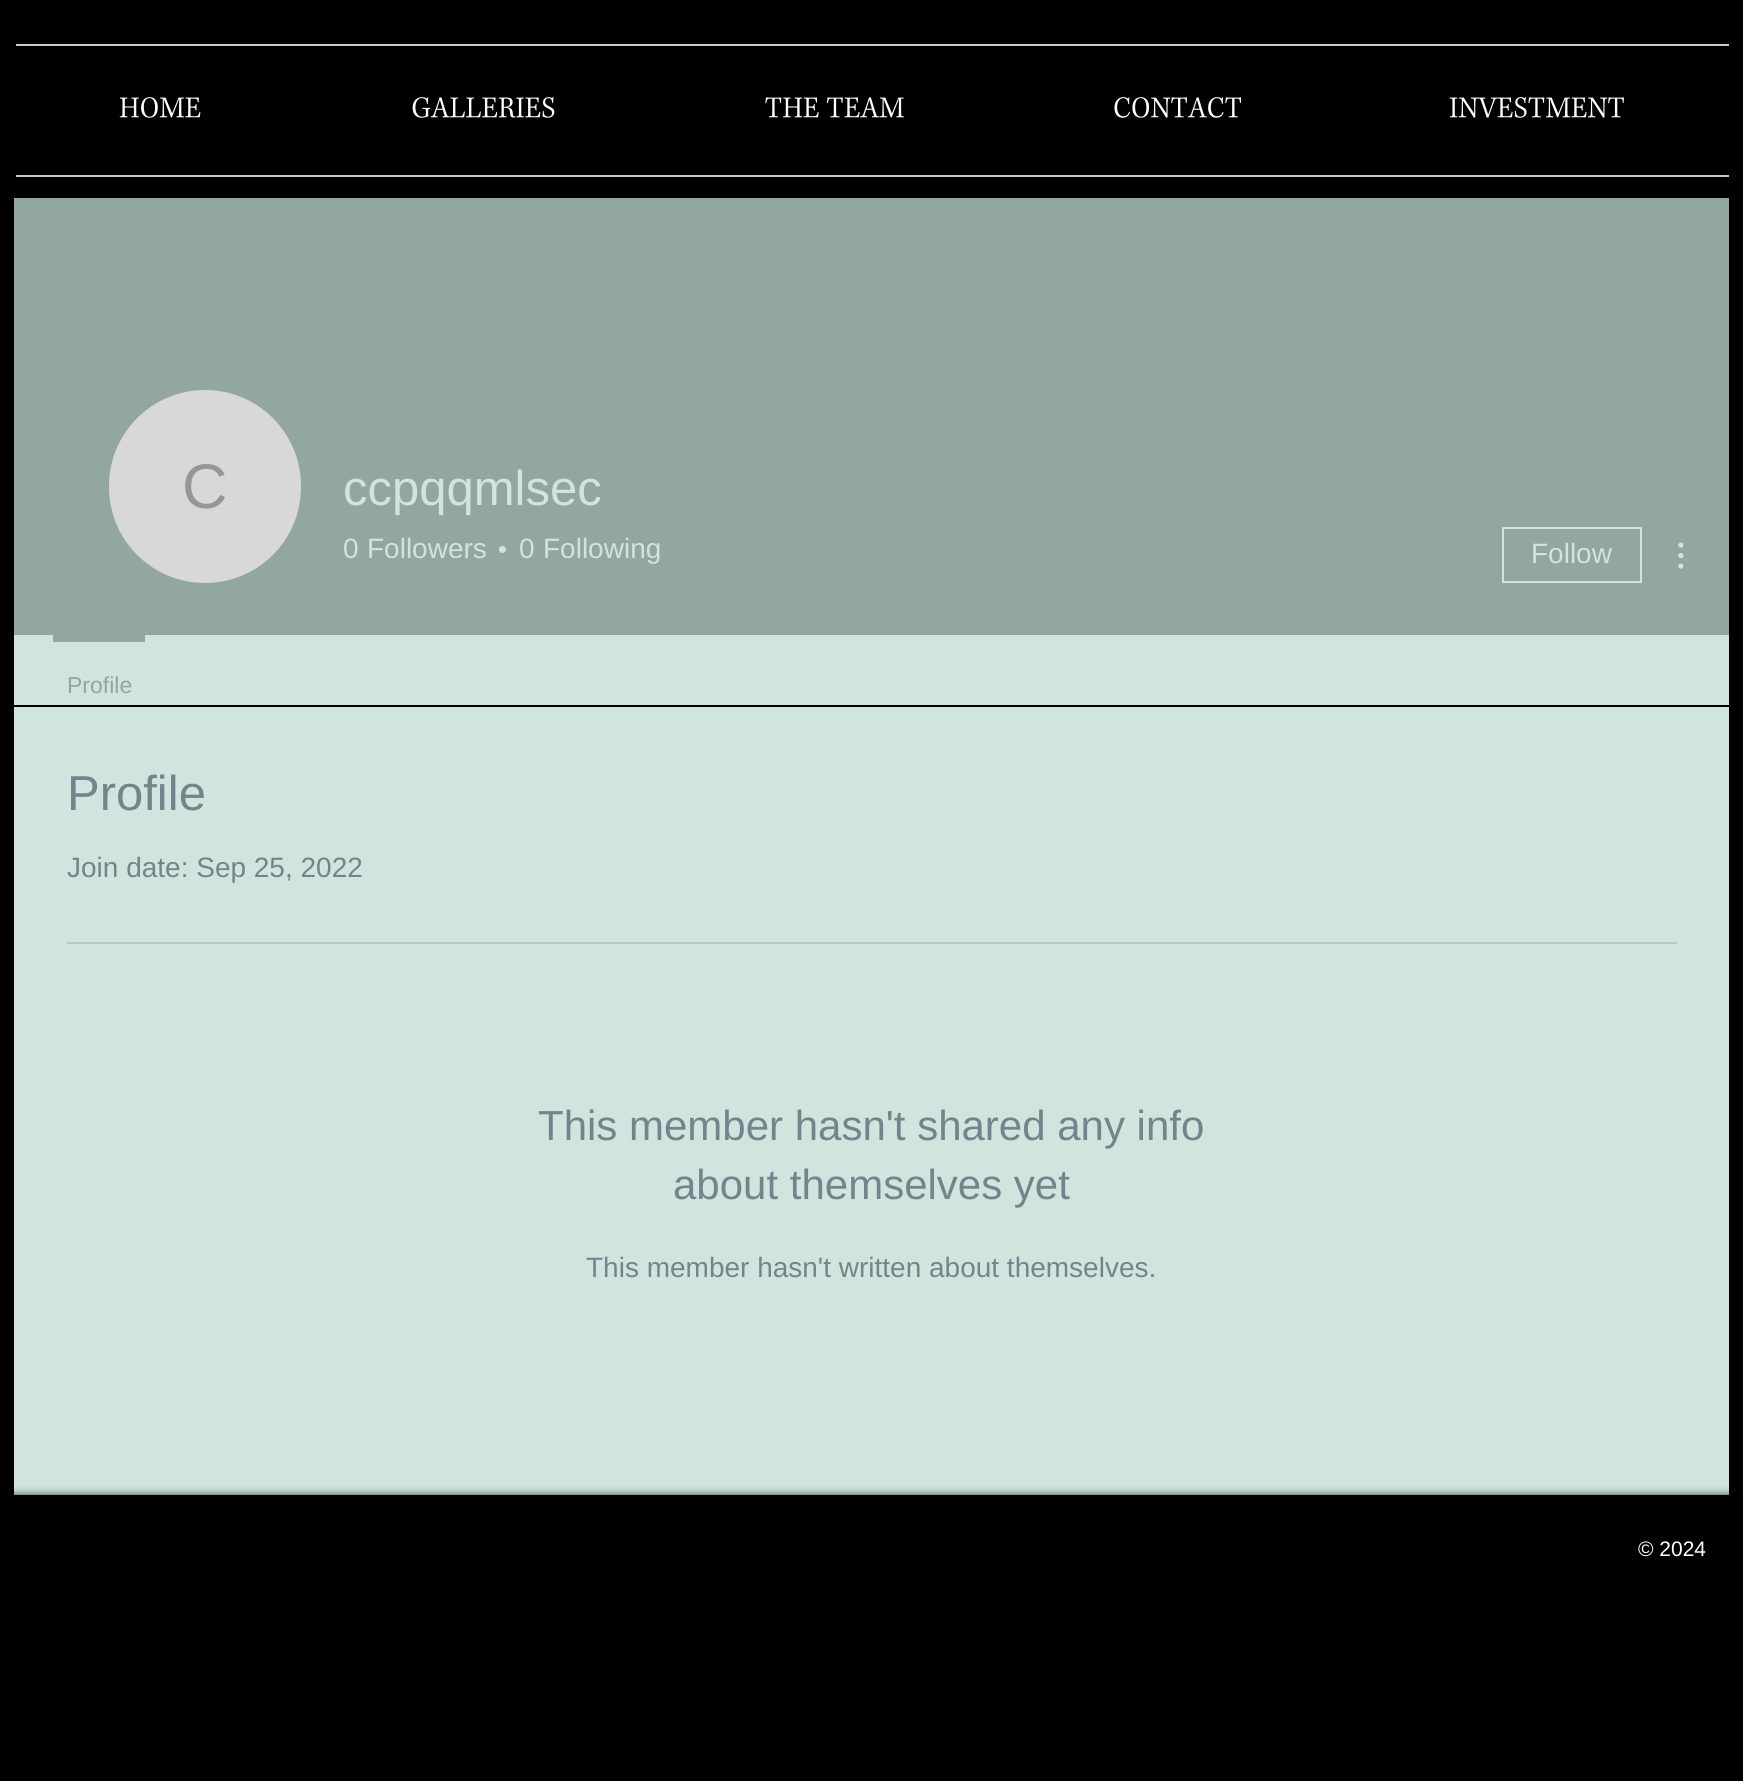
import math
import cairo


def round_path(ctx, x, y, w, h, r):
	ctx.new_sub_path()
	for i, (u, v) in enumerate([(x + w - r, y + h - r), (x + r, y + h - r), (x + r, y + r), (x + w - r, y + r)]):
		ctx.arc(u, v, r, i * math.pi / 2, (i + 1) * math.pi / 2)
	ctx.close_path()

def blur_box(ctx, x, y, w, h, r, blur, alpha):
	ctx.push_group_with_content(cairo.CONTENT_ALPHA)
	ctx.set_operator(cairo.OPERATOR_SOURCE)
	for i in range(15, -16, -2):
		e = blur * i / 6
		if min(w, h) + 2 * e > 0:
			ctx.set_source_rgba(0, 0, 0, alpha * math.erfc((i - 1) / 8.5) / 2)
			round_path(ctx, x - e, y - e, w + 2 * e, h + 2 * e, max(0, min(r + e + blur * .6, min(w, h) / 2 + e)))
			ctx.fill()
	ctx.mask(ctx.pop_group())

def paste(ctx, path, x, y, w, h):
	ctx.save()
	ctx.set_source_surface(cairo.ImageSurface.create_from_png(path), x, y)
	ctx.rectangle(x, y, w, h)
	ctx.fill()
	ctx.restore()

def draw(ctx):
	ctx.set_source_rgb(0, 0, 0)
	ctx.paint()
	ctx.set_source_rgb(0.792, 0.792, 0.792)
	ctx.rectangle(16, 44, 1713, 2)
	ctx.fill()
	ctx.rectangle(16, 175, 1713, 2)
	ctx.fill()
	paste(ctx, 'media/1.png', 119, 97, 82, 21)
	paste(ctx, 'media/2.png', 412, 97, 143, 21)
	paste(ctx, 'media/3.png', 765, 97, 139, 21)
	paste(ctx, 'media/4.png', 1114, 97, 128, 21)
	paste(ctx, 'media/5.png', 1449, 97, 175, 21)
	ctx.set_source_rgb(0.573, 0.651, 0.635)
	ctx.rectangle(14, 198, 1715, 437)
	ctx.fill()
	ctx.set_source_rgb(0.847, 0.847, 0.847)
	round_path(ctx, 109, 390, 192, 193, 96)
	ctx.fill()
	ctx.select_font_face('Liberation Sans')
	ctx.set_font_size(63)
	ctx.set_source_rgb(0.592, 0.592, 0.592)
	ctx.move_to(182, 508)
	ctx.show_text('C')
	ctx.set_font_size(49)
	ctx.set_source_rgb(0.816, 0.898, 0.871)
	ctx.move_to(343, 505)
	ctx.show_text('ccpqqmlsec')
	ctx.set_font_size(28)
	ctx.move_to(343, 558)
	ctx.show_text('0')
	ctx.move_to(367, 558)
	ctx.show_text('Followers')
	ctx.new_path()
	ctx.arc(502.5, 549.5, 3.5, 0, 2 * math.pi)
	ctx.fill()
	ctx.move_to(519, 558)
	ctx.show_text('0')
	ctx.move_to(543, 558)
	ctx.show_text('Following')
	ctx.rectangle(1503, 528, 138, 54)
	ctx.stroke()
	ctx.move_to(1531, 563)
	ctx.show_text('Follow')
	paste(ctx, 'media/6.png', 1678, 542, 6, 27)
	ctx.rectangle(14, 635, 1715, 70)
	ctx.fill()
	ctx.set_source_rgb(0.573, 0.651, 0.635)
	ctx.rectangle(53, 635, 92, 7)
	ctx.fill()
	ctx.set_font_size(23)
	ctx.move_to(67, 693)
	ctx.show_text('Profile')
	ctx.set_source_rgb(0.816, 0.898, 0.871)
	ctx.rectangle(14, 707, 1715, 788)
	ctx.fill()
	ctx.set_font_size(49)
	ctx.set_source_rgb(0.447, 0.522, 0.549)
	ctx.move_to(67, 810)
	ctx.show_text('Profile')
	ctx.set_font_size(28)
	ctx.move_to(67, 877)
	ctx.show_text('Join date: Sep 25, 2022')
	ctx.set_source_rgb(0.706, 0.784, 0.773)
	ctx.rectangle(67, 942, 1610, 2)
	ctx.fill()
	ctx.set_font_size(42)
	ctx.set_source_rgb(0.447, 0.522, 0.549)
	ctx.move_to(538, 1140)
	ctx.show_text('This member hasn\'t shared any info')
	ctx.move_to(673, 1199)
	ctx.show_text('about themselves yet')
	ctx.set_font_size(28)
	ctx.move_to(586, 1277)
	ctx.show_text('This member hasn\'t written about themselves.')
	ctx.save()
	ctx.set_fill_rule(cairo.FILL_RULE_EVEN_ODD)
	ctx.new_path()
	ctx.move_to(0, 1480)
	ctx.line_to(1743, 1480)
	ctx.line_to(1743, 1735)
	ctx.line_to(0, 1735)
	ctx.close_path()
	ctx.move_to(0, 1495)
	ctx.line_to(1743, 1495)
	ctx.line_to(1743, 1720)
	ctx.line_to(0, 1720)
	ctx.close_path()
	ctx.clip()
	ctx.set_source_rgb(0, 0, 0)
	blur_box(ctx, 0, 1495, 1743, 225, 0, 4.5, 0.7)
	ctx.restore()
	ctx.set_font_size(21)
	ctx.set_source_rgb(1, 1, 1)
	ctx.move_to(1638, 1556)
	ctx.show_text('© 2024')


surface = cairo.ImageSurface(cairo.FORMAT_RGB24, 1743, 1781)
ctx = cairo.Context(surface)
options = cairo.FontOptions()
options.set_hint_metrics(cairo.HINT_METRICS_OFF)
options.set_hint_style(cairo.HINT_STYLE_NONE)
ctx.set_font_options(options)
ctx.set_miter_limit(4)
draw(ctx)
surface.write_to_png('image.png')
